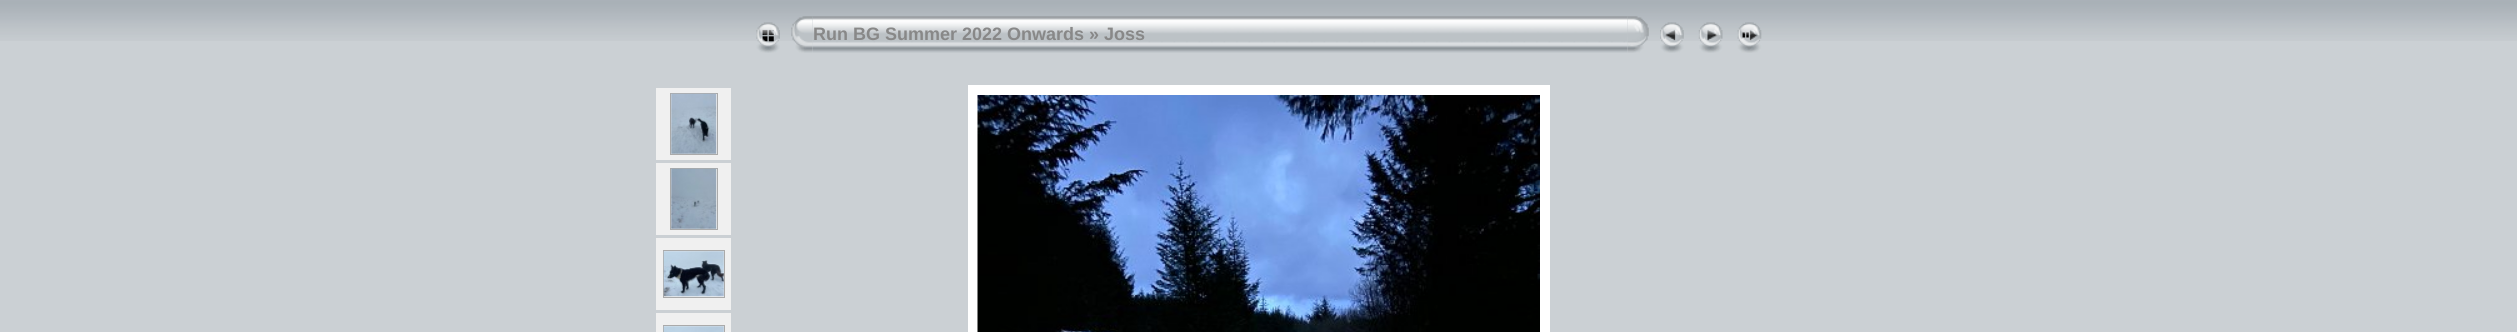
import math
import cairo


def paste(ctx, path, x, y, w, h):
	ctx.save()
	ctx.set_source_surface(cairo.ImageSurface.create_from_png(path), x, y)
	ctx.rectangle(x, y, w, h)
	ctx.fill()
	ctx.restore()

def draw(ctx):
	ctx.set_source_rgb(0.796, 0.816, 0.831)
	ctx.paint()
	paste(ctx, 'media/1.png', 0, 0, 2517, 41)
	paste(ctx, 'media/2.png', 756, 22, 24, 31)
	paste(ctx, 'media/4.png', 812, 16, 816, 37)
	paste(ctx, 'media/3.png', 791, 16, 22, 37)
	ctx.select_font_face('Liberation Sans', cairo.FONT_SLANT_NORMAL, cairo.FONT_WEIGHT_BOLD)
	ctx.set_font_size(18)
	ctx.set_source_rgb(0.533, 0.533, 0.533)
	ctx.move_to(813, 40)
	ctx.show_text('Run BG Summer 2022 Onwards » Joss')
	paste(ctx, 'media/5.png', 1627, 16, 22, 37)
	paste(ctx, 'media/6.png', 1660, 22, 24, 31)
	paste(ctx, 'media/7.png', 1698, 22, 25, 31)
	paste(ctx, 'media/8.png', 1737, 22, 25, 31)
	ctx.set_source_rgb(0.941, 0.941, 0.941)
	ctx.rectangle(656, 88, 75, 72)
	ctx.fill()
	ctx.rectangle(670.5, 93.5, 47, 61)
	ctx.set_source_rgb(0.667, 0.667, 0.667)
	ctx.set_line_width(1)
	ctx.stroke()
	paste(ctx, 'media/9.png', 671, 93, 46, 61)
	ctx.set_source_rgb(0.941, 0.941, 0.941)
	ctx.rectangle(656, 163, 75, 72)
	ctx.fill()
	ctx.rectangle(670.5, 168.5, 47, 61)
	ctx.set_source_rgb(0.667, 0.667, 0.667)
	ctx.stroke()
	paste(ctx, 'media/10.png', 671, 168, 46, 61)
	ctx.set_source_rgb(0.941, 0.941, 0.941)
	ctx.rectangle(656, 238, 75, 72)
	ctx.fill()
	ctx.rectangle(663.5, 250.5, 61, 47)
	ctx.set_source_rgb(0.667, 0.667, 0.667)
	ctx.stroke()
	paste(ctx, 'media/11.png', 663, 251, 61, 46)
	ctx.set_source_rgb(0.941, 0.941, 0.941)
	ctx.rectangle(656, 313, 75, 19)
	ctx.fill()
	ctx.rectangle(663.5, 325.5, 61, 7)
	ctx.set_source_rgb(0.667, 0.667, 0.667)
	ctx.stroke()
	paste(ctx, 'media/12.png', 663, 326, 61, 6)
	ctx.rectangle(973, 90, 572, 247)
	ctx.set_source_rgb(1, 1, 1)
	ctx.set_line_width(10)
	ctx.stroke()
	paste(ctx, 'media/13.png', 977, 95, 563, 237)


surface = cairo.ImageSurface(cairo.FORMAT_RGB24, 2517, 332)
ctx = cairo.Context(surface)
options = cairo.FontOptions()
options.set_hint_metrics(cairo.HINT_METRICS_OFF)
options.set_hint_style(cairo.HINT_STYLE_NONE)
ctx.set_font_options(options)
ctx.set_miter_limit(4)
draw(ctx)
surface.write_to_png('image.png')
